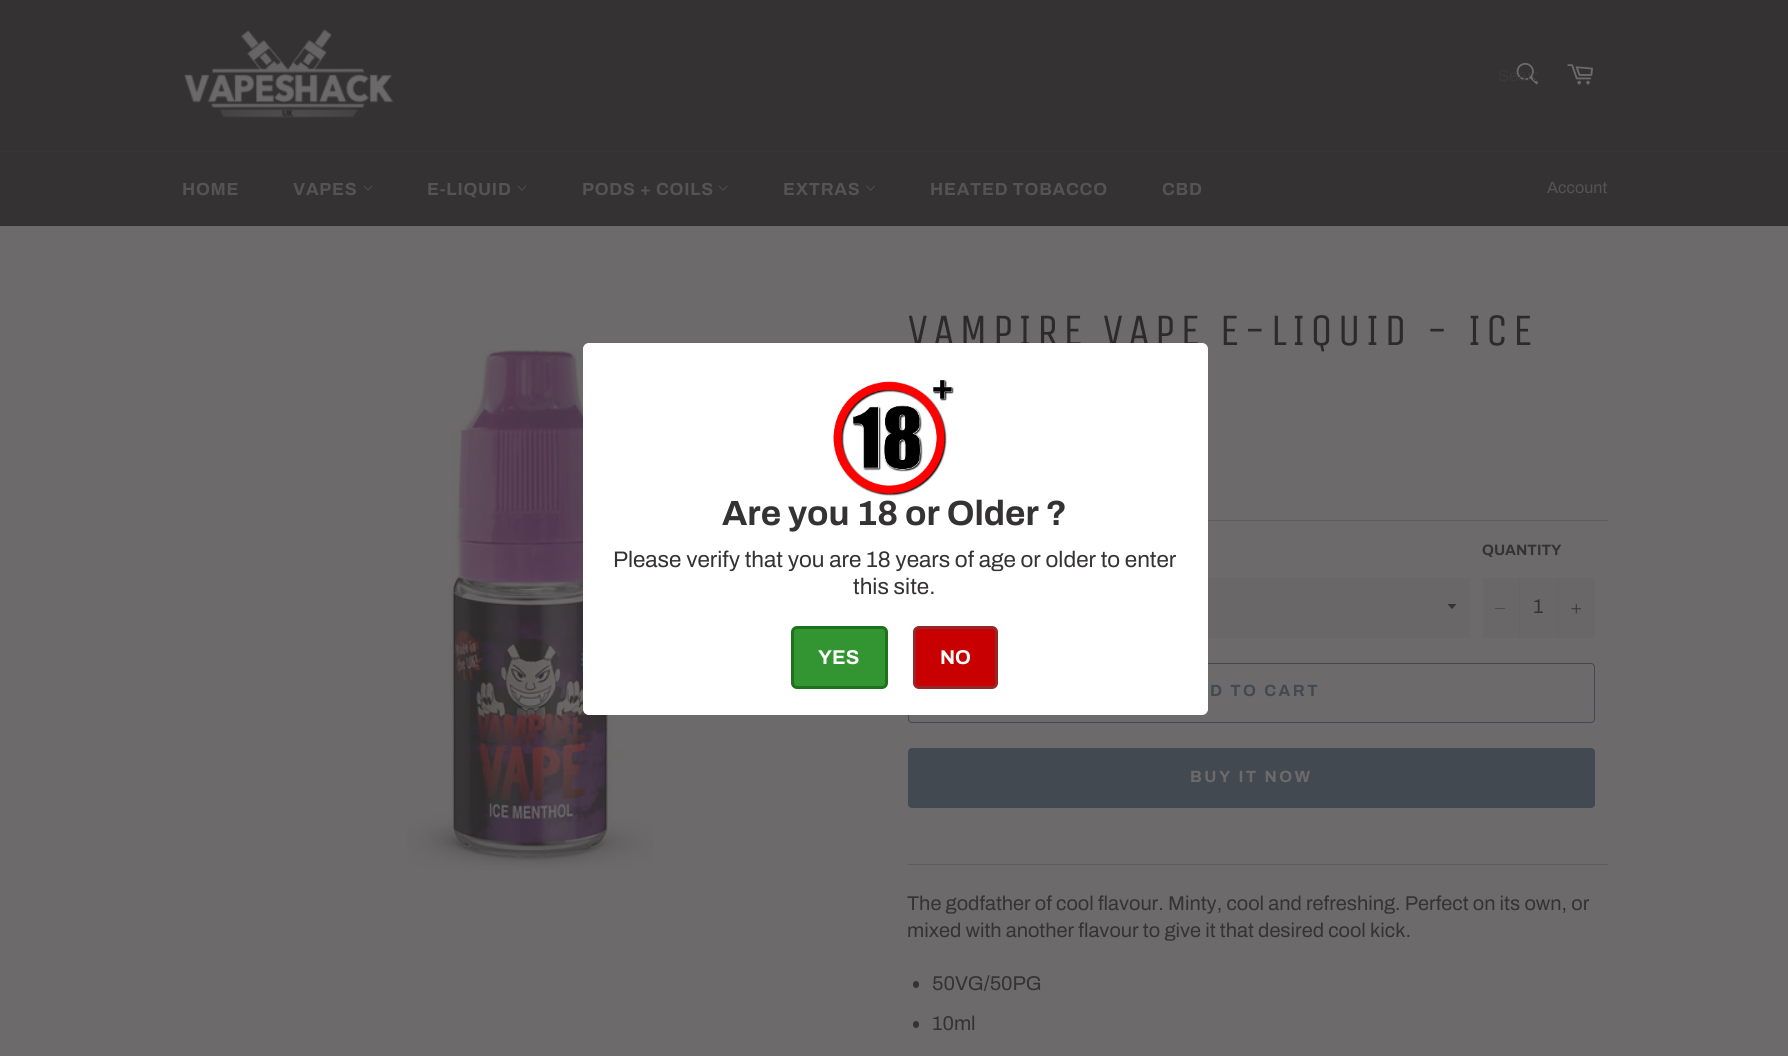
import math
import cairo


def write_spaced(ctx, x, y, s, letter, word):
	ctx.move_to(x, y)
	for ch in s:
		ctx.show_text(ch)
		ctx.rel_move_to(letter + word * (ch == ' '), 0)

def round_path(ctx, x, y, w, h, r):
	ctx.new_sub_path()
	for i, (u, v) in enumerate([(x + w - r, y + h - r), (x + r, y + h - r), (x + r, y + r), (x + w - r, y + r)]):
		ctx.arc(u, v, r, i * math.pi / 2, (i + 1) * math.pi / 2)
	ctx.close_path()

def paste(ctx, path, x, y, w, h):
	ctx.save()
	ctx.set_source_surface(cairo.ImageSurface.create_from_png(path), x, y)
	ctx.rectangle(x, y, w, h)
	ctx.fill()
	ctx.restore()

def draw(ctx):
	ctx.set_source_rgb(0.204, 0.196, 0.196)
	ctx.paint()
	paste(ctx, 'media/1.png', 183, 29, 211, 89)
	paste(ctx, 'media/2.png', 1516, 62, 23, 23)
	ctx.save()
	ctx.rectangle(1498, 68, 40, 17)
	ctx.clip()
	ctx.select_font_face('Archivo')
	ctx.set_font_size(16.25)
	ctx.set_source_rgb(0.231, 0.224, 0.224)
	ctx.move_to(1498, 81)
	ctx.show_text('Searc')
	ctx.restore()
	paste(ctx, 'media/3.png', 1567, 64, 26, 21)
	ctx.set_source_rgb(0.216, 0.208, 0.208)
	ctx.rectangle(0, 151, 1788, 1)
	ctx.fill()
	ctx.select_font_face('Archivo', cairo.FONT_SLANT_NORMAL, cairo.FONT_WEIGHT_BOLD)
	ctx.set_font_size(17.5)
	ctx.set_source_rgb(0.333, 0.325, 0.325)
	write_spaced(ctx, 182, 195, 'HOME', 0.75, 0)
	write_spaced(ctx, 293, 195, 'VAPES', 0.75, 0)
	paste(ctx, 'media/4.png', 363, 185, 10, 6)
	write_spaced(ctx, 427, 195, 'E-LIQUID', 0.75, 0)
	paste(ctx, 'media/5.png', 517, 185, 10, 6)
	write_spaced(ctx, 582, 195, 'PODS + COILS', 0.75, 0)
	paste(ctx, 'media/4.png', 718, 185, 10, 6)
	write_spaced(ctx, 783, 195, 'EXTRAS', 0.75, 0)
	paste(ctx, 'media/6.png', 866, 185, 9, 6)
	write_spaced(ctx, 930, 195, 'HEATED TOBACCO', 0.75, 0)
	write_spaced(ctx, 1162, 195, 'CBD', 0.75, 0)
	ctx.select_font_face('Archivo')
	ctx.set_font_size(16.25)
	ctx.move_to(1547, 193)
	ctx.show_text('Account')
	ctx.set_source_rgb(0.424, 0.416, 0.416)
	ctx.rectangle(0, 226, 1788, 830)
	ctx.fill()
	paste(ctx, 'media/8.png', 407, 349, 246, 521)
	ctx.select_font_face('Unica One')
	ctx.set_font_size(45)
	ctx.set_source_rgb(0.173, 0.165, 0.165)
	write_spaced(ctx, 907, 345, 'VAMPIRE VAPE E-LIQUID - ICE', 4.5, 0)
	round_path(ctx, 908.5, 663.5, 686, 59, 3.5)
	ctx.set_source_rgb(0.263, 0.286, 0.314)
	ctx.set_line_width(1)
	ctx.stroke()
	ctx.set_source_rgb(1, 1, 1)
	round_path(ctx, 583.5, 343.5, 624, 371, 5.5)
	ctx.fill_preserve()
	ctx.stroke()
	paste(ctx, 'media/7.png', 833, 379, 121, 117)
	ctx.select_font_face('Archivo', cairo.FONT_SLANT_NORMAL, cairo.FONT_WEIGHT_BOLD)
	ctx.set_font_size(35)
	ctx.set_source_rgb(0.204, 0.196, 0.196)
	ctx.move_to(722, 525)
	ctx.show_text('Are you 18 or Older ?')
	ctx.select_font_face('Archivo')
	ctx.set_font_size(22.5)
	ctx.move_to(613, 567)
	ctx.show_text('Please verify that you are 18 years of age or older to enter')
	ctx.move_to(853, 594)
	ctx.show_text('this site.')
	ctx.set_source_rgb(0.2, 0.584, 0.196)
	round_path(ctx, 792.5, 627.5, 94, 60, 4.5)
	ctx.fill_preserve()
	ctx.set_source_rgb(0.118, 0.443, 0.114)
	ctx.set_line_width(3)
	ctx.stroke()
	ctx.select_font_face('Archivo', cairo.FONT_SLANT_NORMAL, cairo.FONT_WEIGHT_BOLD)
	ctx.set_font_size(20)
	ctx.set_source_rgb(1, 1, 1)
	ctx.move_to(818, 664)
	ctx.show_text('YES')
	ctx.set_source_rgb(0.784, 0, 0.008)
	round_path(ctx, 914.5, 627.5, 82, 60, 4.5)
	ctx.fill_preserve()
	ctx.set_source_rgb(0.588, 0.149, 0.153)
	ctx.stroke()
	ctx.set_source_rgb(1, 1, 1)
	ctx.move_to(940, 664)
	ctx.show_text('NO')
	ctx.set_source_rgb(0.365, 0.357, 0.357)
	ctx.rectangle(1208, 520, 400, 1)
	ctx.fill()
	ctx.set_source_rgb(0.412, 0.404, 0.404)
	ctx.rectangle(1208, 578, 262, 60)
	ctx.fill()
	ctx.set_source_rgb(0.204, 0.196, 0.196)
	ctx.new_path()
	ctx.move_to(1447.5, 604)
	ctx.line_to(1452, 609)
	ctx.line_to(1456.5, 604)
	ctx.close_path()
	ctx.fill()
	ctx.set_font_size(15)
	ctx.move_to(1482, 555)
	ctx.show_text('QUANTITY')
	ctx.set_source_rgb(0.412, 0.404, 0.404)
	ctx.rectangle(1483, 578, 112, 60)
	ctx.fill()
	ctx.set_source_rgb(0.4, 0.392, 0.392)
	ctx.rectangle(1519, 578, 1, 60)
	ctx.fill()
	ctx.set_source_rgb(0.204, 0.196, 0.196)
	ctx.set_fill_rule(cairo.FILL_RULE_EVEN_ODD)
	ctx.new_path()
	ctx.move_to(1505, 608.5)
	ctx.line_to(1505, 609)
	ctx.line_to(1495, 609)
	ctx.line_to(1495, 608.5)
	ctx.close_path()
	ctx.fill()
	ctx.select_font_face('Archivo')
	ctx.set_font_size(20)
	ctx.move_to(1533, 613)
	ctx.show_text('1')
	ctx.set_source_rgb(0.4, 0.392, 0.392)
	ctx.rectangle(1558, 578, 1, 60)
	ctx.fill()
	paste(ctx, 'media/9.png', 1571, 604, 10, 10)
	ctx.select_font_face('Archivo', cairo.FONT_SLANT_NORMAL, cairo.FONT_WEIGHT_BOLD)
	ctx.set_font_size(16.25)
	ctx.set_source_rgb(0.263, 0.286, 0.314)
	write_spaced(ctx, 1210, 696, 'D TO CART', 2.5, 0)
	round_path(ctx, 908, 748, 687, 60, 4)
	ctx.fill()
	ctx.set_source_rgb(0.424, 0.416, 0.416)
	write_spaced(ctx, 1190, 782, 'BUY IT NOW', 2.5, 0)
	ctx.set_source_rgb(0.365, 0.357, 0.357)
	ctx.rectangle(908, 864, 700, 1)
	ctx.fill()
	ctx.select_font_face('Archivo')
	ctx.set_font_size(20)
	ctx.set_source_rgb(0.204, 0.196, 0.196)
	ctx.move_to(907, 910)
	ctx.show_text('The godfather of cool flavour. Minty, cool and refreshing. Perfect on its own, or')
	ctx.move_to(907, 937)
	ctx.show_text('mixed with another flavour to give it that desired cool kick.')
	round_path(ctx, 913, 981, 6, 7, 3)
	ctx.fill()
	ctx.move_to(932, 990)
	ctx.show_text('50VG/50PG')
	round_path(ctx, 913, 1021, 6, 7, 3)
	ctx.fill()
	ctx.move_to(932, 1030)
	ctx.show_text('10ml')


surface = cairo.ImageSurface(cairo.FORMAT_RGB24, 1788, 1056)
ctx = cairo.Context(surface)
options = cairo.FontOptions()
options.set_hint_metrics(cairo.HINT_METRICS_OFF)
options.set_hint_style(cairo.HINT_STYLE_NONE)
ctx.set_font_options(options)
ctx.set_miter_limit(4)
draw(ctx)
surface.write_to_png('image.png')
